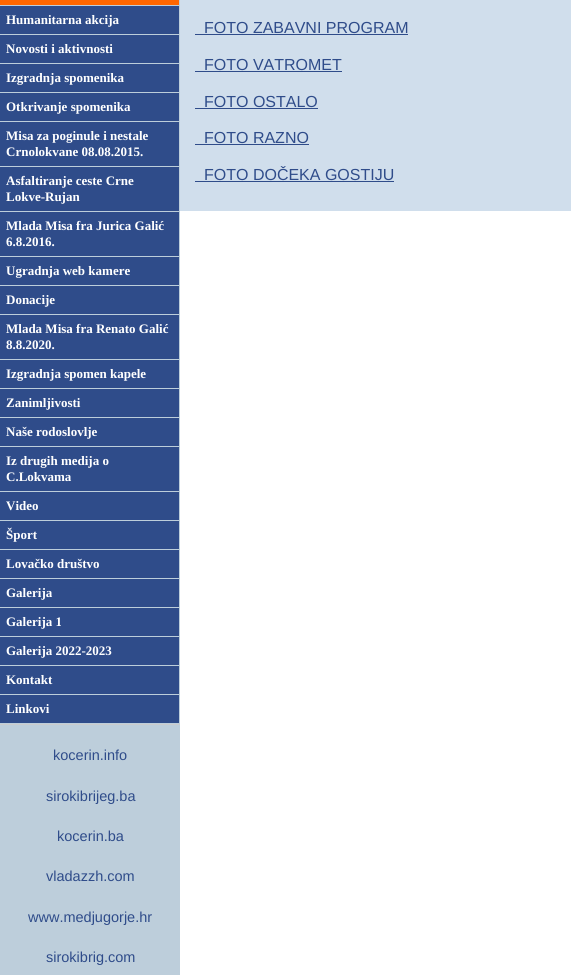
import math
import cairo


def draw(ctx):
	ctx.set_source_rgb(1, 1, 1)
	ctx.paint()
	ctx.set_source_rgb(0.741, 0.808, 0.859)
	ctx.rectangle(0, 725, 180, 250)
	ctx.fill()
	ctx.set_source_rgb(0.8, 0.8, 0.8)
	ctx.rectangle(0, 724, 180, 1)
	ctx.fill()
	ctx.set_source_rgb(1, 0.4, 0)
	ctx.rectangle(0, 0, 180, 5)
	ctx.fill()
	ctx.set_source_rgb(0.741, 0.808, 0.859)
	ctx.rectangle(179, 0, 1, 724)
	ctx.rectangle(0, 5, 180, 1)
	ctx.fill()
	ctx.set_source_rgb(0.184, 0.298, 0.541)
	ctx.rectangle(0, 6, 179, 28)
	ctx.fill()
	ctx.set_source_rgb(0.741, 0.808, 0.859)
	ctx.rectangle(0, 34, 180, 1)
	ctx.fill()
	ctx.select_font_face('Liberation Serif', cairo.FONT_SLANT_NORMAL, cairo.FONT_WEIGHT_BOLD)
	ctx.set_font_size(13)
	ctx.set_source_rgb(1, 1, 1)
	ctx.move_to(6, 24)
	ctx.show_text('Humanitarna akcija')
	ctx.set_source_rgb(0.184, 0.298, 0.541)
	ctx.rectangle(0, 35, 179, 28)
	ctx.fill()
	ctx.set_source_rgb(0.741, 0.808, 0.859)
	ctx.rectangle(0, 63, 180, 1)
	ctx.fill()
	ctx.set_source_rgb(1, 1, 1)
	ctx.move_to(6, 53)
	ctx.show_text('Novosti i aktivnosti')
	ctx.set_source_rgb(0.184, 0.298, 0.541)
	ctx.rectangle(0, 64, 179, 28)
	ctx.fill()
	ctx.set_source_rgb(0.741, 0.808, 0.859)
	ctx.rectangle(0, 92, 180, 1)
	ctx.fill()
	ctx.set_source_rgb(1, 1, 1)
	ctx.move_to(6, 82)
	ctx.show_text('Izgradnja spomenika')
	ctx.set_source_rgb(0.184, 0.298, 0.541)
	ctx.rectangle(0, 93, 179, 28)
	ctx.fill()
	ctx.set_source_rgb(0.741, 0.808, 0.859)
	ctx.rectangle(0, 121, 180, 1)
	ctx.fill()
	ctx.set_source_rgb(1, 1, 1)
	ctx.move_to(6, 111)
	ctx.show_text('Otkrivanje spomenika')
	ctx.set_source_rgb(0.184, 0.298, 0.541)
	ctx.rectangle(0, 122, 179, 44)
	ctx.fill()
	ctx.set_source_rgb(0.741, 0.808, 0.859)
	ctx.rectangle(0, 166, 180, 1)
	ctx.fill()
	ctx.set_source_rgb(1, 1, 1)
	ctx.move_to(6, 140)
	ctx.show_text('Misa za poginule i nestale')
	ctx.move_to(6, 156)
	ctx.show_text('Crnolokvane 08.08.2015.')
	ctx.set_source_rgb(0.184, 0.298, 0.541)
	ctx.rectangle(0, 167, 179, 44)
	ctx.fill()
	ctx.set_source_rgb(0.741, 0.808, 0.859)
	ctx.rectangle(0, 211, 180, 1)
	ctx.fill()
	ctx.set_source_rgb(1, 1, 1)
	ctx.move_to(6, 185)
	ctx.show_text('Asfaltiranje ceste Crne')
	ctx.move_to(6, 201)
	ctx.show_text('Lokve-Rujan')
	ctx.set_source_rgb(0.184, 0.298, 0.541)
	ctx.rectangle(0, 212, 179, 44)
	ctx.fill()
	ctx.set_source_rgb(0.741, 0.808, 0.859)
	ctx.rectangle(0, 256, 180, 1)
	ctx.fill()
	ctx.set_source_rgb(1, 1, 1)
	ctx.move_to(6, 230)
	ctx.show_text('Mlada Misa fra Jurica Galić')
	ctx.move_to(6, 246)
	ctx.show_text('6.8.2016.')
	ctx.set_source_rgb(0.184, 0.298, 0.541)
	ctx.rectangle(0, 257, 179, 28)
	ctx.fill()
	ctx.set_source_rgb(0.741, 0.808, 0.859)
	ctx.rectangle(0, 285, 180, 1)
	ctx.fill()
	ctx.set_source_rgb(1, 1, 1)
	ctx.move_to(6, 275)
	ctx.show_text('Ugradnja web kamere')
	ctx.set_source_rgb(0.184, 0.298, 0.541)
	ctx.rectangle(0, 286, 179, 28)
	ctx.fill()
	ctx.set_source_rgb(0.741, 0.808, 0.859)
	ctx.rectangle(0, 314, 180, 1)
	ctx.fill()
	ctx.set_source_rgb(1, 1, 1)
	ctx.move_to(6, 304)
	ctx.show_text('Donacije')
	ctx.set_source_rgb(0.184, 0.298, 0.541)
	ctx.rectangle(0, 315, 179, 44)
	ctx.fill()
	ctx.set_source_rgb(0.741, 0.808, 0.859)
	ctx.rectangle(0, 359, 180, 1)
	ctx.fill()
	ctx.set_source_rgb(1, 1, 1)
	ctx.move_to(6, 333)
	ctx.show_text('Mlada Misa fra Renato Galić')
	ctx.move_to(6, 349)
	ctx.show_text('8.8.2020.')
	ctx.set_source_rgb(0.184, 0.298, 0.541)
	ctx.rectangle(0, 360, 179, 28)
	ctx.fill()
	ctx.set_source_rgb(0.741, 0.808, 0.859)
	ctx.rectangle(0, 388, 180, 1)
	ctx.fill()
	ctx.set_source_rgb(1, 1, 1)
	ctx.move_to(6, 378)
	ctx.show_text('Izgradnja spomen kapele')
	ctx.set_source_rgb(0.184, 0.298, 0.541)
	ctx.rectangle(0, 389, 179, 28)
	ctx.fill()
	ctx.set_source_rgb(0.741, 0.808, 0.859)
	ctx.rectangle(0, 417, 180, 1)
	ctx.fill()
	ctx.set_source_rgb(1, 1, 1)
	ctx.move_to(6, 407)
	ctx.show_text('Zanimljivosti')
	ctx.set_source_rgb(0.184, 0.298, 0.541)
	ctx.rectangle(0, 418, 179, 28)
	ctx.fill()
	ctx.set_source_rgb(0.741, 0.808, 0.859)
	ctx.rectangle(0, 446, 180, 1)
	ctx.fill()
	ctx.set_source_rgb(1, 1, 1)
	ctx.move_to(6, 436)
	ctx.show_text('Naše rodoslovlje')
	ctx.set_source_rgb(0.184, 0.298, 0.541)
	ctx.rectangle(0, 447, 179, 44)
	ctx.fill()
	ctx.set_source_rgb(0.741, 0.808, 0.859)
	ctx.rectangle(0, 491, 180, 1)
	ctx.fill()
	ctx.set_source_rgb(1, 1, 1)
	ctx.move_to(6, 465)
	ctx.show_text('Iz drugih medija o')
	ctx.move_to(6, 481)
	ctx.show_text('C.Lokvama')
	ctx.set_source_rgb(0.184, 0.298, 0.541)
	ctx.rectangle(0, 492, 179, 28)
	ctx.fill()
	ctx.set_source_rgb(0.741, 0.808, 0.859)
	ctx.rectangle(0, 520, 180, 1)
	ctx.fill()
	ctx.set_source_rgb(1, 1, 1)
	ctx.move_to(6, 510)
	ctx.show_text('Video')
	ctx.set_source_rgb(0.184, 0.298, 0.541)
	ctx.rectangle(0, 521, 179, 28)
	ctx.fill()
	ctx.set_source_rgb(0.741, 0.808, 0.859)
	ctx.rectangle(0, 549, 180, 1)
	ctx.fill()
	ctx.set_source_rgb(1, 1, 1)
	ctx.move_to(6, 539)
	ctx.show_text('Šport')
	ctx.set_source_rgb(0.184, 0.298, 0.541)
	ctx.rectangle(0, 550, 179, 28)
	ctx.fill()
	ctx.set_source_rgb(0.741, 0.808, 0.859)
	ctx.rectangle(0, 578, 180, 1)
	ctx.fill()
	ctx.set_source_rgb(1, 1, 1)
	ctx.move_to(6, 568)
	ctx.show_text('Lovačko društvo')
	ctx.set_source_rgb(0.184, 0.298, 0.541)
	ctx.rectangle(0, 579, 179, 28)
	ctx.fill()
	ctx.set_source_rgb(0.741, 0.808, 0.859)
	ctx.rectangle(0, 607, 180, 1)
	ctx.fill()
	ctx.set_source_rgb(1, 1, 1)
	ctx.move_to(6, 597)
	ctx.show_text('Galerija')
	ctx.set_source_rgb(0.184, 0.298, 0.541)
	ctx.rectangle(0, 608, 179, 28)
	ctx.fill()
	ctx.set_source_rgb(0.741, 0.808, 0.859)
	ctx.rectangle(0, 636, 180, 1)
	ctx.fill()
	ctx.set_source_rgb(1, 1, 1)
	ctx.move_to(6, 626)
	ctx.show_text('Galerija 1')
	ctx.set_source_rgb(0.184, 0.298, 0.541)
	ctx.rectangle(0, 637, 179, 28)
	ctx.fill()
	ctx.set_source_rgb(0.741, 0.808, 0.859)
	ctx.rectangle(0, 665, 180, 1)
	ctx.fill()
	ctx.set_source_rgb(1, 1, 1)
	ctx.move_to(6, 655)
	ctx.show_text('Galerija 2022-2023')
	ctx.set_source_rgb(0.184, 0.298, 0.541)
	ctx.rectangle(0, 666, 179, 28)
	ctx.fill()
	ctx.set_source_rgb(0.741, 0.808, 0.859)
	ctx.rectangle(0, 694, 180, 1)
	ctx.fill()
	ctx.set_source_rgb(1, 1, 1)
	ctx.move_to(6, 684)
	ctx.show_text('Kontakt')
	ctx.set_source_rgb(0.184, 0.298, 0.541)
	ctx.rectangle(0, 695, 179, 28)
	ctx.fill()
	ctx.set_source_rgb(0.741, 0.808, 0.859)
	ctx.rectangle(0, 723, 180, 1)
	ctx.fill()
	ctx.set_source_rgb(1, 1, 1)
	ctx.move_to(6, 713)
	ctx.show_text('Linkovi')
	ctx.select_font_face('Liberation Sans')
	ctx.set_font_size(14.5)
	ctx.set_source_rgb(0.184, 0.298, 0.541)
	for x, y, s in [
		(53, 760, 'kocerin.info'),
		(46, 801, 'sirokibrijeg.ba'),
		(57, 841, 'kocerin.ba'),
		(46, 881, 'vladazzh.com'),
		(28, 922, 'www.medjugorje.hr'),
		(46, 962, 'sirokibrig.com'),
	]:
		ctx.move_to(x, y)
		ctx.show_text(s)
	ctx.set_source_rgb(0.816, 0.871, 0.925)
	ctx.rectangle(180, 0, 391, 211)
	ctx.fill()
	ctx.set_font_size(16)
	ctx.set_source_rgb(0.184, 0.298, 0.541)
	ctx.move_to(204, 33)
	ctx.show_text('FOTO ZABAVNI PROGRAM')
	ctx.rectangle(195, 34, 213, 1)
	ctx.fill()
	ctx.move_to(204, 70)
	ctx.show_text('FOTO VATROMET')
	ctx.rectangle(195, 71, 147, 1)
	ctx.fill()
	ctx.move_to(204, 107)
	ctx.show_text('FOTO OSTALO')
	ctx.rectangle(195, 108, 123, 1)
	ctx.fill()
	ctx.move_to(204, 143)
	ctx.show_text('FOTO RAZNO')
	ctx.rectangle(195, 144, 114, 1)
	ctx.fill()
	ctx.move_to(204, 180)
	ctx.show_text('FOTO DOČEKA GOSTIJU')
	ctx.rectangle(195, 181, 199, 1)
	ctx.fill()


surface = cairo.ImageSurface(cairo.FORMAT_RGB24, 571, 975)
ctx = cairo.Context(surface)
options = cairo.FontOptions()
options.set_hint_metrics(cairo.HINT_METRICS_OFF)
options.set_hint_style(cairo.HINT_STYLE_NONE)
ctx.set_font_options(options)
ctx.set_miter_limit(4)
draw(ctx)
surface.write_to_png('image.png')
